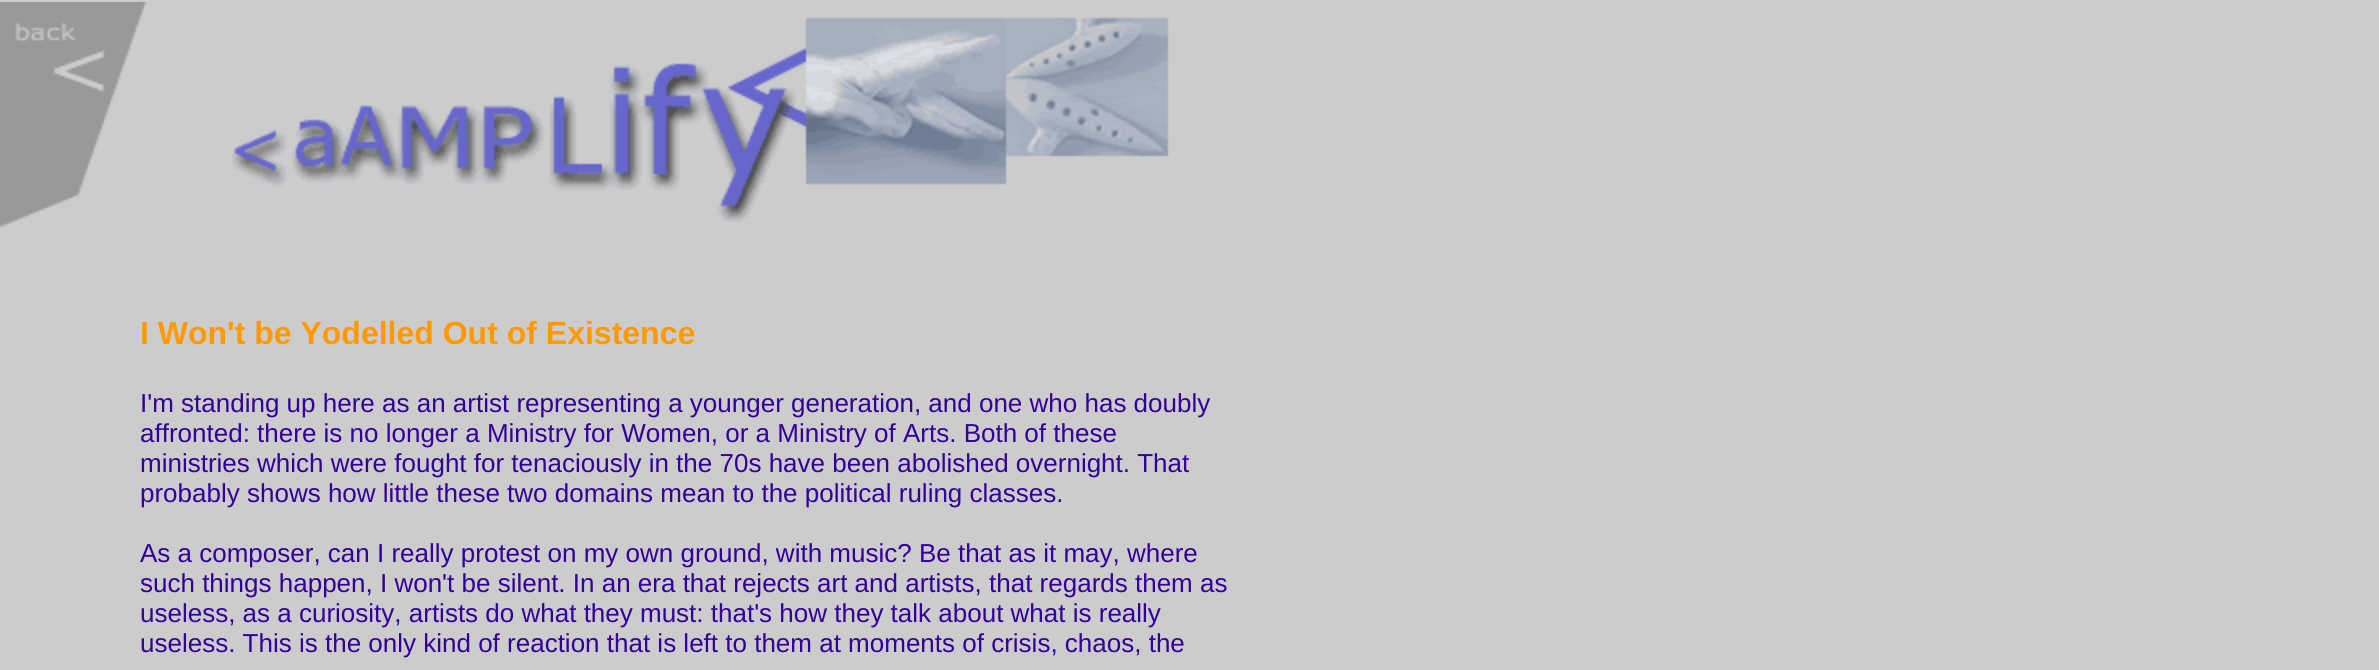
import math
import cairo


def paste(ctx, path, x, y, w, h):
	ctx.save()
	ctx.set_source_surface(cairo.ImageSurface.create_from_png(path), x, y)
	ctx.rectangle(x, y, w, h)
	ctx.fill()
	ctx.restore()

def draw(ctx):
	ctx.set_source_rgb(0.8, 0.8, 0.8)
	ctx.paint()
	paste(ctx, 'media/1.png', 0, 2, 110, 96)
	paste(ctx, 'media/2.png', 110, 2, 1059, 220)
	paste(ctx, 'media/3.png', 0, 98, 110, 130)
	ctx.select_font_face('Liberation Sans', cairo.FONT_SLANT_NORMAL, cairo.FONT_WEIGHT_BOLD)
	ctx.set_font_size(32)
	ctx.set_source_rgb(1, 0.6, 0)
	ctx.move_to(140, 344)
	ctx.show_text('I Won\'t be Yodelled Out of Existence')
	ctx.select_font_face('Liberation Sans')
	ctx.set_font_size(26)
	ctx.set_source_rgb(0.2, 0, 0.6)
	for x, y, s in [
		(140, 412, 'I\'m standing up here as an artist representing a younger generation, and one who has doubly'),
		(140, 442, 'affronted: there is no longer a Ministry for Women, or a Ministry of Arts. Both of these'),
		(140, 472, 'ministries which were fought for tenaciously in the 70s have been abolished overnight. That'),
		(140, 502, 'probably shows how little these two domains mean to the political ruling classes.'),
		(140, 562, 'As a composer, can I really protest on my own ground, with music? Be that as it may, where'),
		(140, 592, 'such things happen, I won\'t be silent. In an era that rejects art and artists, that regards them as'),
		(140, 622, 'useless, as a curiosity, artists do what they must: that\'s how they talk about what is really'),
		(140, 652, 'useless. This is the only kind of reaction that is left to them at moments of crisis, chaos, the'),
	]:
		ctx.move_to(x, y)
		ctx.show_text(s)


surface = cairo.ImageSurface(cairo.FORMAT_RGB24, 2379, 670)
ctx = cairo.Context(surface)
options = cairo.FontOptions()
options.set_hint_metrics(cairo.HINT_METRICS_OFF)
options.set_hint_style(cairo.HINT_STYLE_NONE)
ctx.set_font_options(options)
ctx.set_miter_limit(4)
draw(ctx)
surface.write_to_png('image.png')
